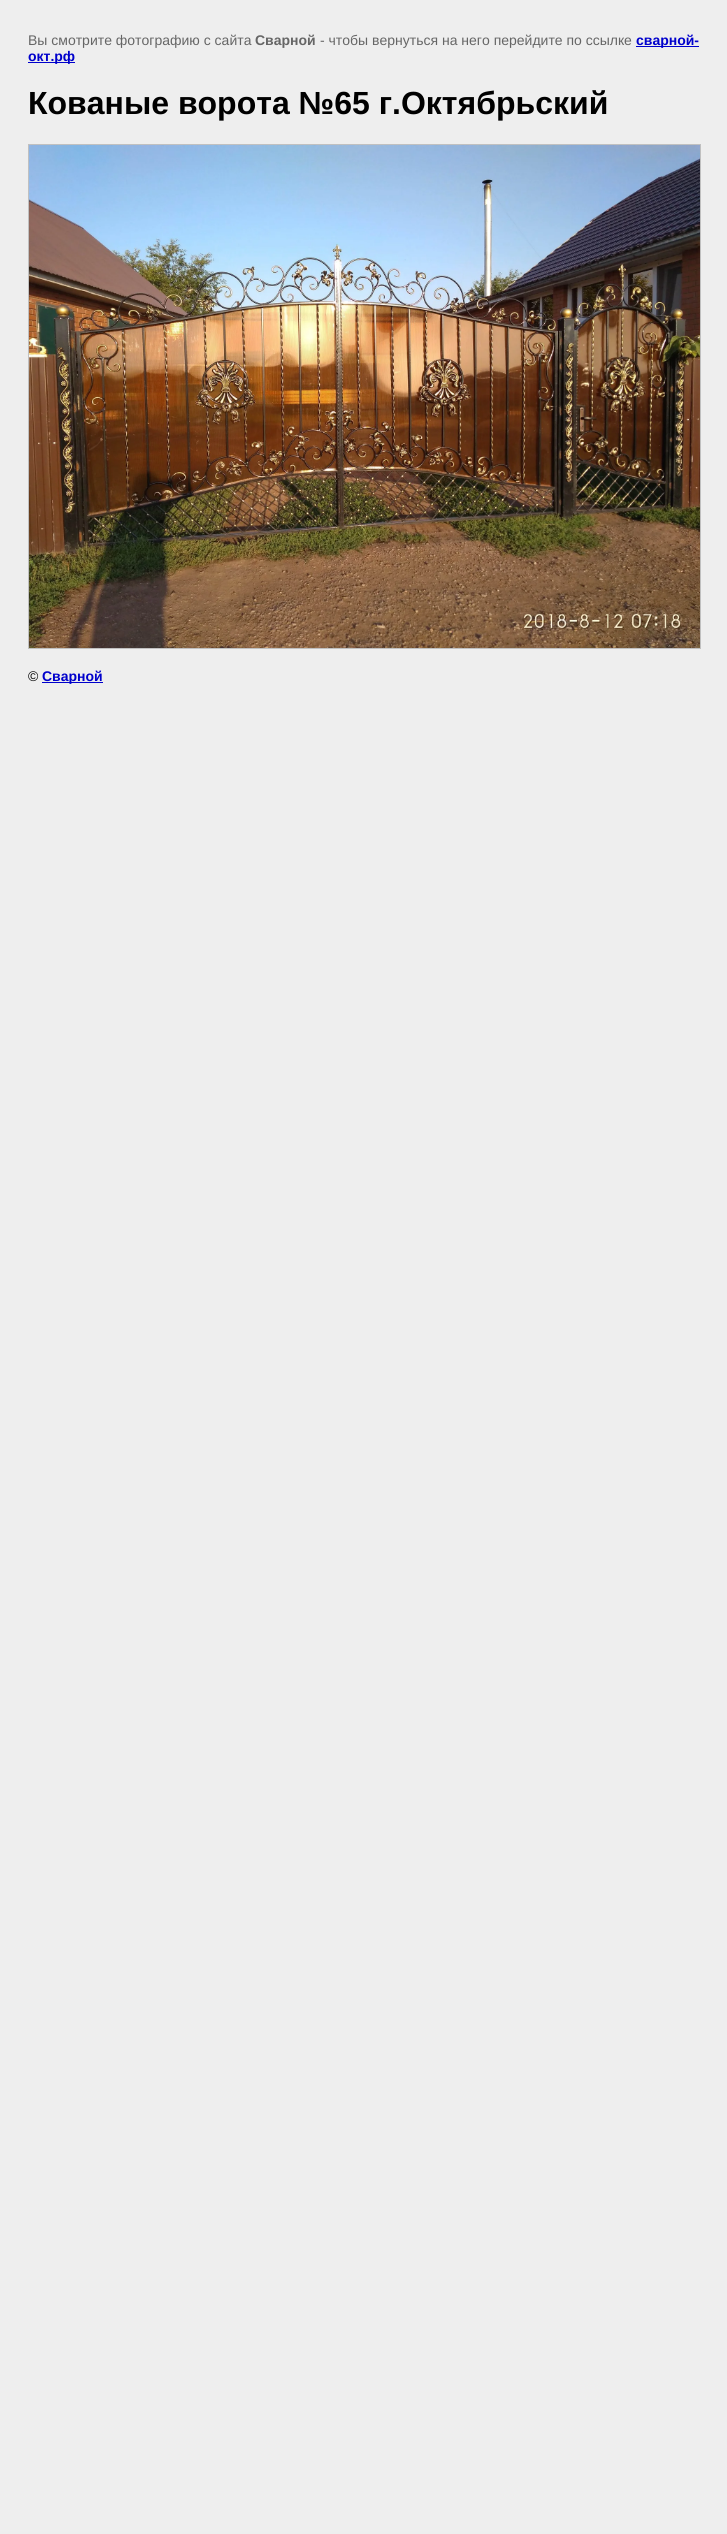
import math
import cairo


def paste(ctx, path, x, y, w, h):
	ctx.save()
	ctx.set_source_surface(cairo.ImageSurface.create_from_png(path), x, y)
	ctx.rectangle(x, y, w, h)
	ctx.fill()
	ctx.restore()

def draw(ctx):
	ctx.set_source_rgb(0.933, 0.933, 0.933)
	ctx.paint()
	ctx.select_font_face('Liberation Sans')
	ctx.set_font_size(14)
	ctx.set_source_rgb(0.4, 0.4, 0.4)
	ctx.move_to(28, 45)
	ctx.show_text('Вы смотрите фотографию с сайта')
	ctx.select_font_face('Liberation Sans', cairo.FONT_SLANT_NORMAL, cairo.FONT_WEIGHT_BOLD)
	ctx.move_to(255, 45)
	ctx.show_text('Сварной')
	ctx.select_font_face('Liberation Sans')
	ctx.move_to(320, 45)
	ctx.show_text('- чтобы вернуться на него перейдите по ссылке')
	ctx.set_source_rgb(0, 0, 0.8)
	ctx.rectangle(636, 46, 63, 1)
	ctx.fill()
	ctx.select_font_face('Liberation Sans', cairo.FONT_SLANT_NORMAL, cairo.FONT_WEIGHT_BOLD)
	ctx.move_to(636, 45)
	ctx.show_text('сварной-')
	ctx.rectangle(28, 62, 47, 1)
	ctx.fill()
	ctx.move_to(28, 61)
	ctx.show_text('окт.рф')
	ctx.set_font_size(32)
	ctx.set_source_rgb(0, 0, 0)
	ctx.move_to(28, 114)
	ctx.show_text('Кованые ворота №65 г.Октябрьский')
	ctx.rectangle(28.5, 144.5, 672, 504)
	ctx.set_source_rgb(0.753, 0.753, 0.753)
	ctx.set_line_width(1)
	ctx.stroke()
	paste(ctx, 'media/1.png', 29, 145, 671, 503)
	ctx.select_font_face('Liberation Sans')
	ctx.set_font_size(14)
	ctx.set_source_rgb(0, 0, 0)
	ctx.move_to(28, 681)
	ctx.show_text('©')
	ctx.set_source_rgb(0, 0, 0.8)
	ctx.rectangle(42, 682, 61, 1)
	ctx.fill()
	ctx.select_font_face('Liberation Sans', cairo.FONT_SLANT_NORMAL, cairo.FONT_WEIGHT_BOLD)
	ctx.move_to(42, 681)
	ctx.show_text('Сварной')


surface = cairo.ImageSurface(cairo.FORMAT_RGB24, 727, 2534)
ctx = cairo.Context(surface)
options = cairo.FontOptions()
options.set_hint_metrics(cairo.HINT_METRICS_OFF)
options.set_hint_style(cairo.HINT_STYLE_NONE)
ctx.set_font_options(options)
ctx.set_miter_limit(4)
draw(ctx)
surface.write_to_png('image.png')
